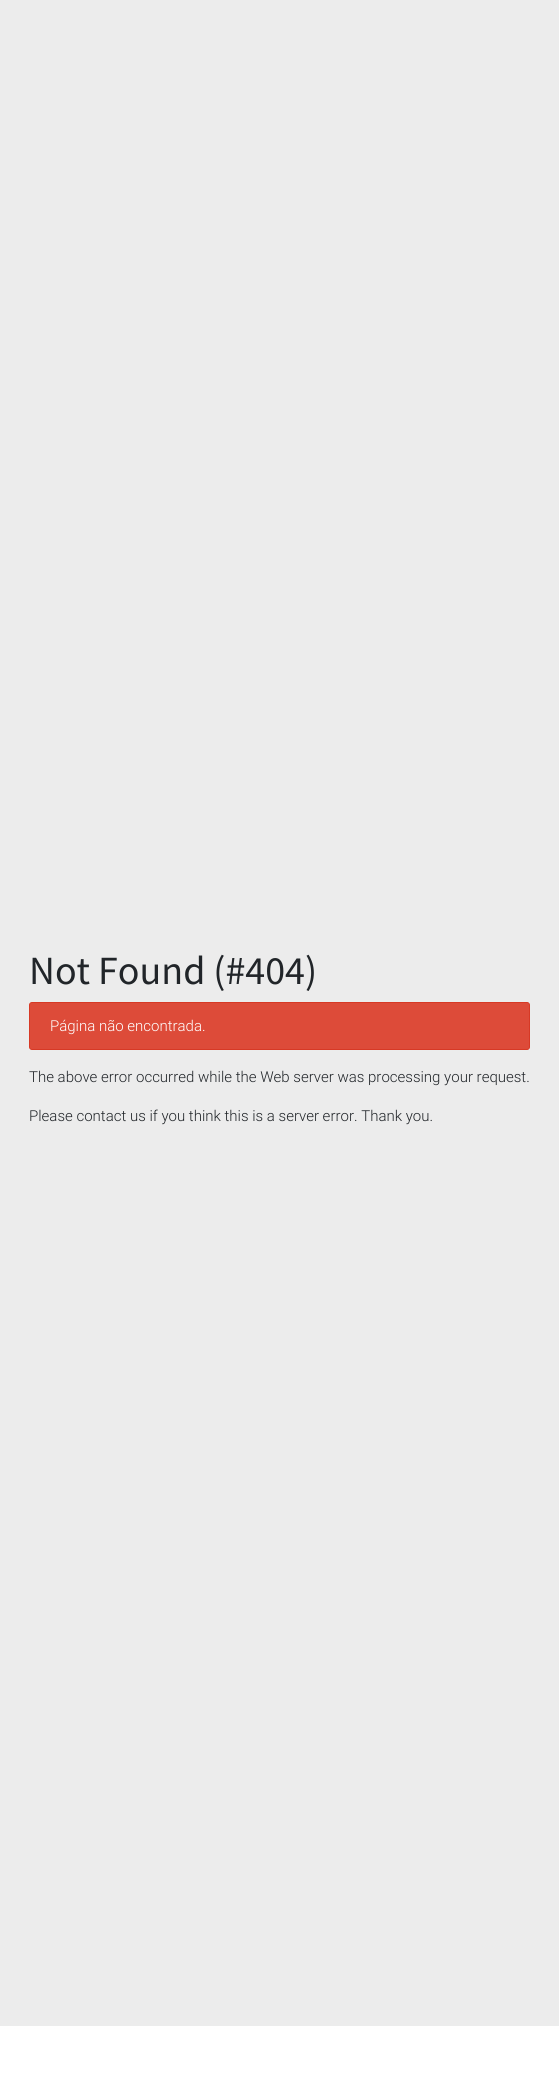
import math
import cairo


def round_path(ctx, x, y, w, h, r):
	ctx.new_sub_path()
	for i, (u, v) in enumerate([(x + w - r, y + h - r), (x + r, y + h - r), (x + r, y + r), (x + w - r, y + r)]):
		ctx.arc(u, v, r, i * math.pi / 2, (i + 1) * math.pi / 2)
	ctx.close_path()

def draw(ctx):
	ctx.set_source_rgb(0.922, 0.922, 0.922)
	ctx.paint()
	ctx.select_font_face('Source Sans Pro')
	ctx.set_font_size(40)
	ctx.set_source_rgb(0.129, 0.145, 0.161)
	ctx.move_to(29, 984)
	ctx.show_text('Not Found (#404)')
	ctx.set_source_rgb(0.867, 0.294, 0.224)
	round_path(ctx, 29.5, 1002.5, 500, 47, 2.5)
	ctx.fill_preserve()
	ctx.set_source_rgb(0.843, 0.224, 0.145)
	ctx.set_line_width(1)
	ctx.stroke()
	ctx.select_font_face('Roboto Light')
	ctx.set_font_size(15)
	ctx.set_source_rgb(1, 1, 1)
	ctx.move_to(50, 1031)
	ctx.show_text('Página não encontrada.')
	ctx.set_source_rgb(0.129, 0.145, 0.161)
	ctx.move_to(29, 1082)
	ctx.show_text('The above error occurred while the Web server was processing your request.')
	ctx.move_to(29, 1121)
	ctx.show_text('Please contact us if you think this is a server error. Thank you.')
	ctx.set_source_rgb(1, 1, 1)
	ctx.rectangle(0, 2026, 559, 63)
	ctx.fill()


surface = cairo.ImageSurface(cairo.FORMAT_RGB24, 559, 2089)
ctx = cairo.Context(surface)
options = cairo.FontOptions()
options.set_hint_metrics(cairo.HINT_METRICS_OFF)
options.set_hint_style(cairo.HINT_STYLE_NONE)
ctx.set_font_options(options)
ctx.set_miter_limit(4)
draw(ctx)
surface.write_to_png('image.png')
